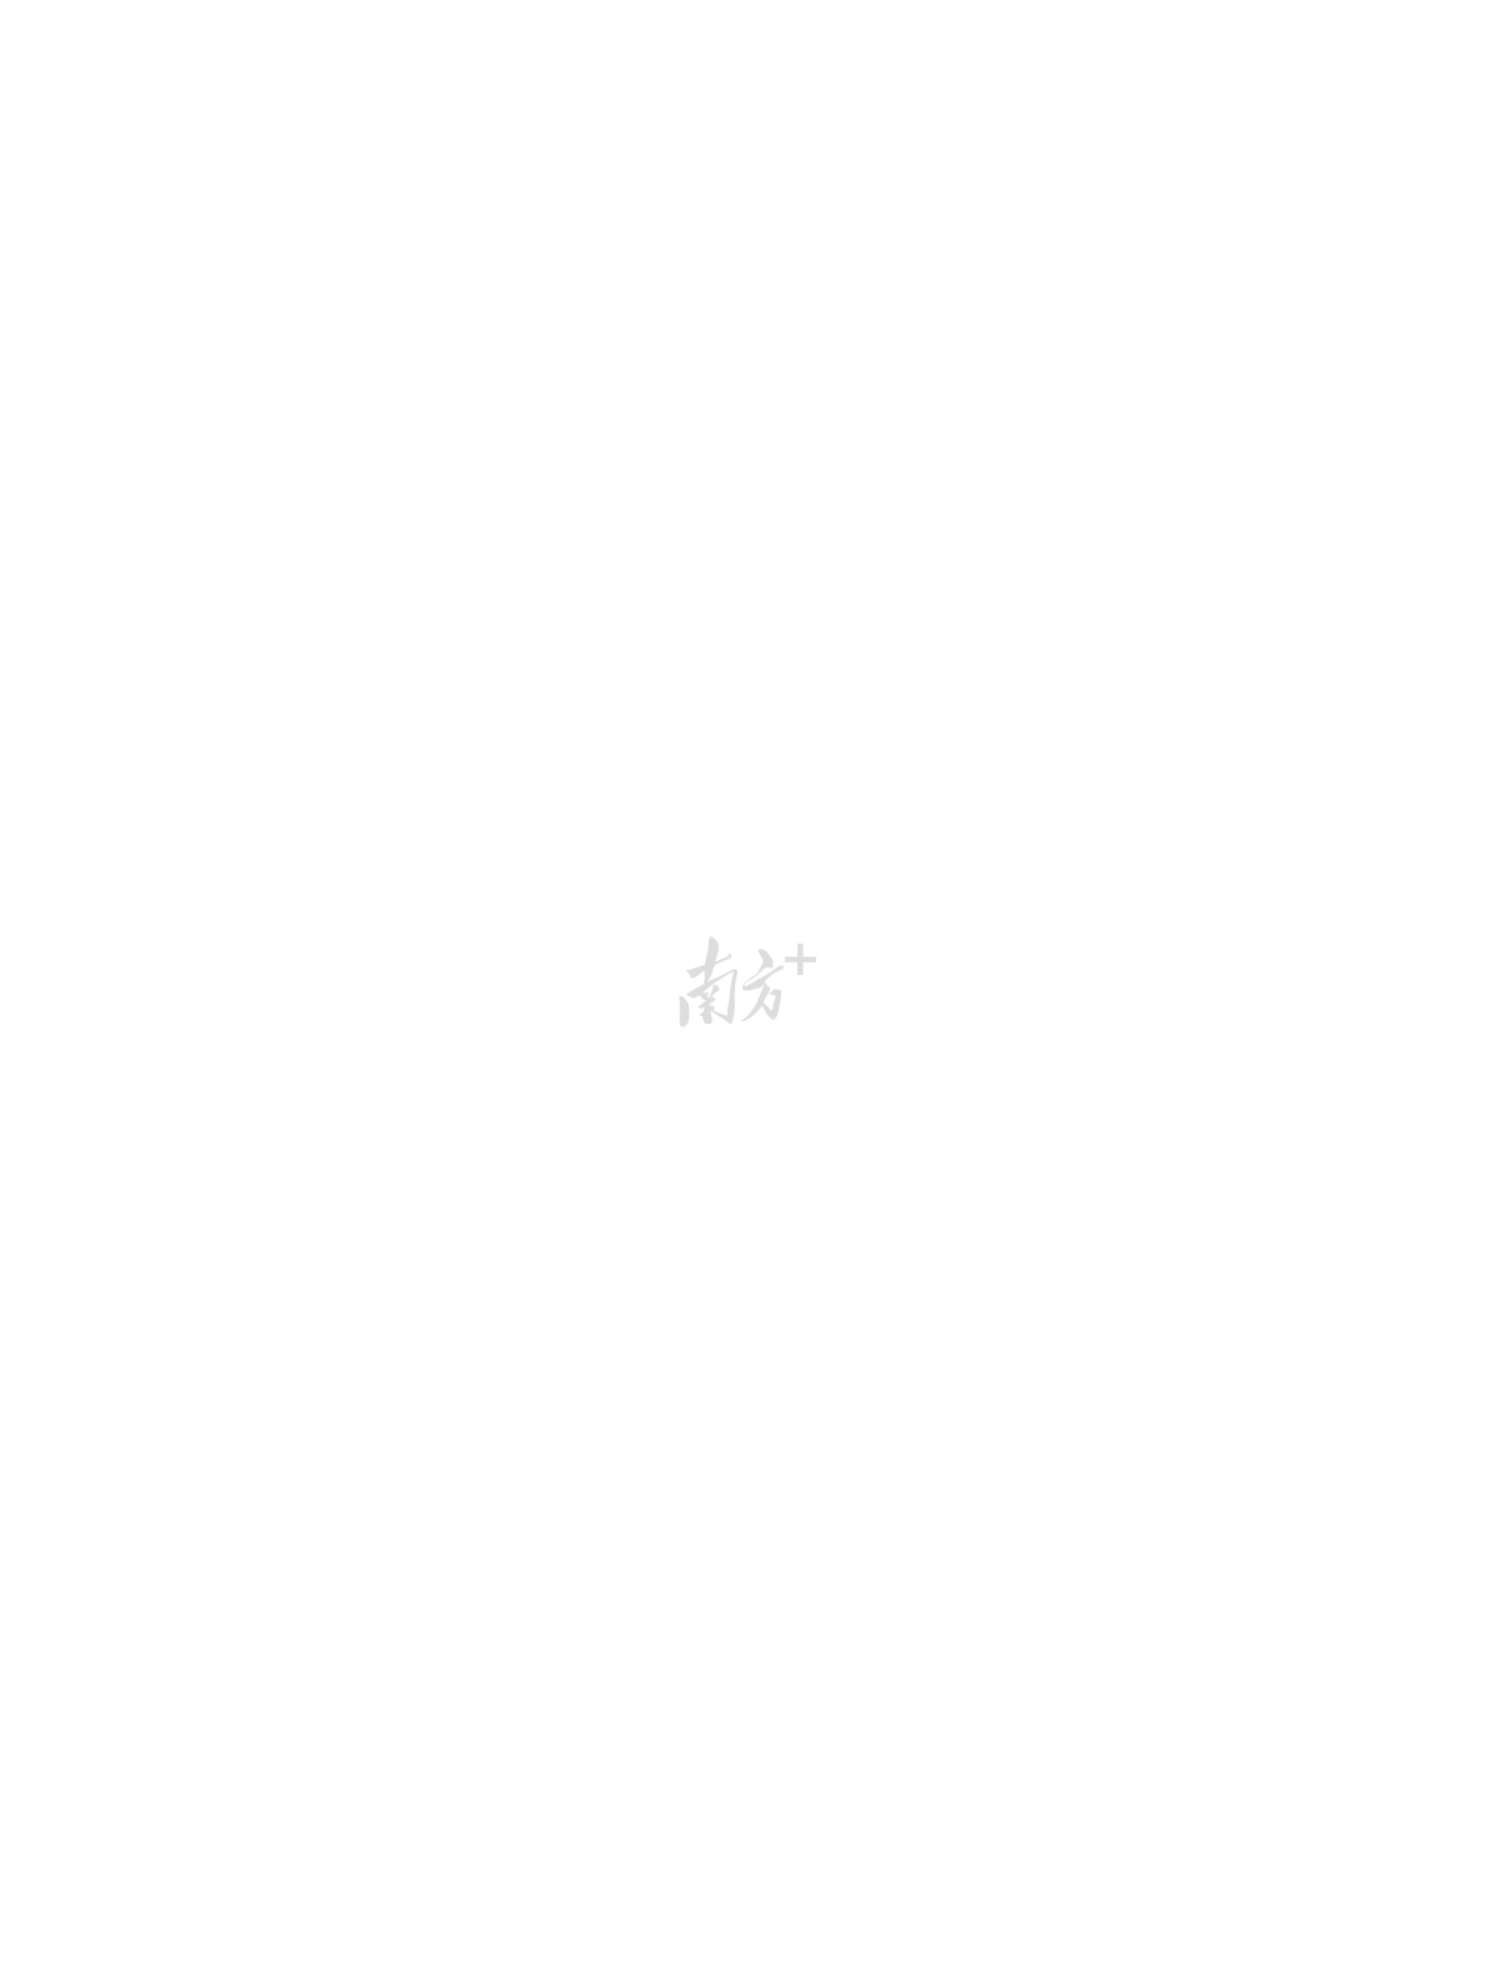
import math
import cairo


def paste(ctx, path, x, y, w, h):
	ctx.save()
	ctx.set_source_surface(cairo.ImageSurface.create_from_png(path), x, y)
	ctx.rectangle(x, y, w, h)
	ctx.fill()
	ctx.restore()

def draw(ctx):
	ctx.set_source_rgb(1, 1, 1)
	ctx.paint()
	paste(ctx, 'media/1.png', 678, 936, 139, 92)


surface = cairo.ImageSurface(cairo.FORMAT_RGB24, 1493, 1963)
ctx = cairo.Context(surface)
options = cairo.FontOptions()
options.set_hint_metrics(cairo.HINT_METRICS_OFF)
options.set_hint_style(cairo.HINT_STYLE_NONE)
ctx.set_font_options(options)
ctx.set_miter_limit(4)
draw(ctx)
surface.write_to_png('image.png')
